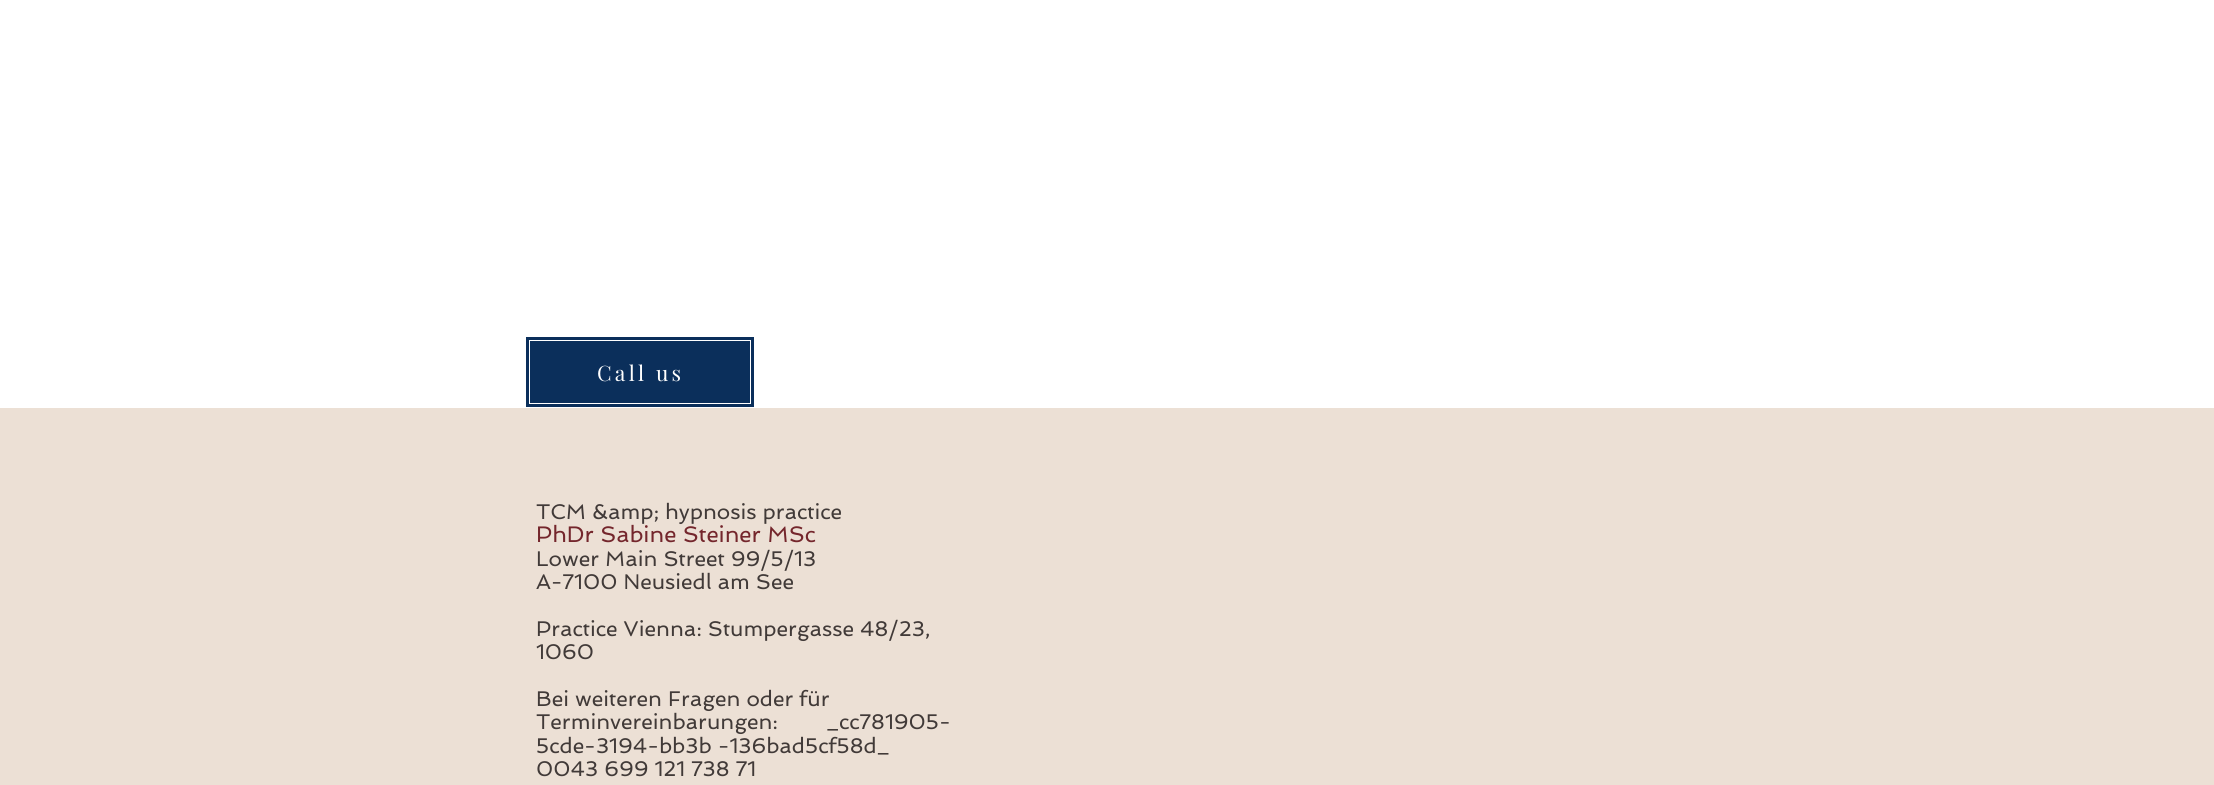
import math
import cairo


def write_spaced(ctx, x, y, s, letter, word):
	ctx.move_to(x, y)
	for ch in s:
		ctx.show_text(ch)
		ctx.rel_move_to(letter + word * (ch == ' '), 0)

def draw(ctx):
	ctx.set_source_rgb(1, 1, 1)
	ctx.paint()
	ctx.set_source_rgb(0.043, 0.184, 0.357)
	ctx.rectangle(526, 337, 228, 70)
	ctx.fill()
	ctx.rectangle(529.5, 340.5, 221, 63)
	ctx.set_source_rgb(1, 1, 1)
	ctx.set_line_width(1)
	ctx.stroke()
	ctx.select_font_face('Playfair Display')
	ctx.set_font_size(21.25)
	write_spaced(ctx, 597, 381, 'Call us', 3.25, 0)
	ctx.set_source_rgb(0.922, 0.878, 0.835)
	ctx.rectangle(0, 408, 2214, 377)
	ctx.fill()
	ctx.select_font_face('Spinnaker')
	ctx.set_source_rgb(0.255, 0.227, 0.22)
	ctx.move_to(536, 519)
	ctx.show_text('TCM &amp; hypnosis practice')
	ctx.set_font_size(22.5)
	ctx.set_source_rgb(0.455, 0.149, 0.173)
	ctx.move_to(536, 542)
	ctx.show_text('PhDr Sabine Steiner MSc')
	ctx.set_font_size(21.25)
	ctx.set_source_rgb(0.255, 0.227, 0.22)
	for x, y, s in [
		(536, 566, 'Lower Main Street 99/5/13'),
		(536, 589, 'A-7100 Neusiedl am See'),
		(536, 636, 'Practice Vienna: Stumpergasse 48/23,'),
		(536, 659, '1060'),
		(536, 706, 'Bei weiteren Fragen oder für'),
		(536, 729, 'Terminvereinbarungen:        _cc781905-'),
		(536, 753, '5cde-3194-bb3b -136bad5cf58d_'),
		(536, 776, '0043 699 121 738 71'),
	]:
		ctx.move_to(x, y)
		ctx.show_text(s)


surface = cairo.ImageSurface(cairo.FORMAT_RGB24, 2214, 785)
ctx = cairo.Context(surface)
options = cairo.FontOptions()
options.set_hint_metrics(cairo.HINT_METRICS_OFF)
options.set_hint_style(cairo.HINT_STYLE_NONE)
ctx.set_font_options(options)
ctx.set_miter_limit(4)
draw(ctx)
surface.write_to_png('image.png')
